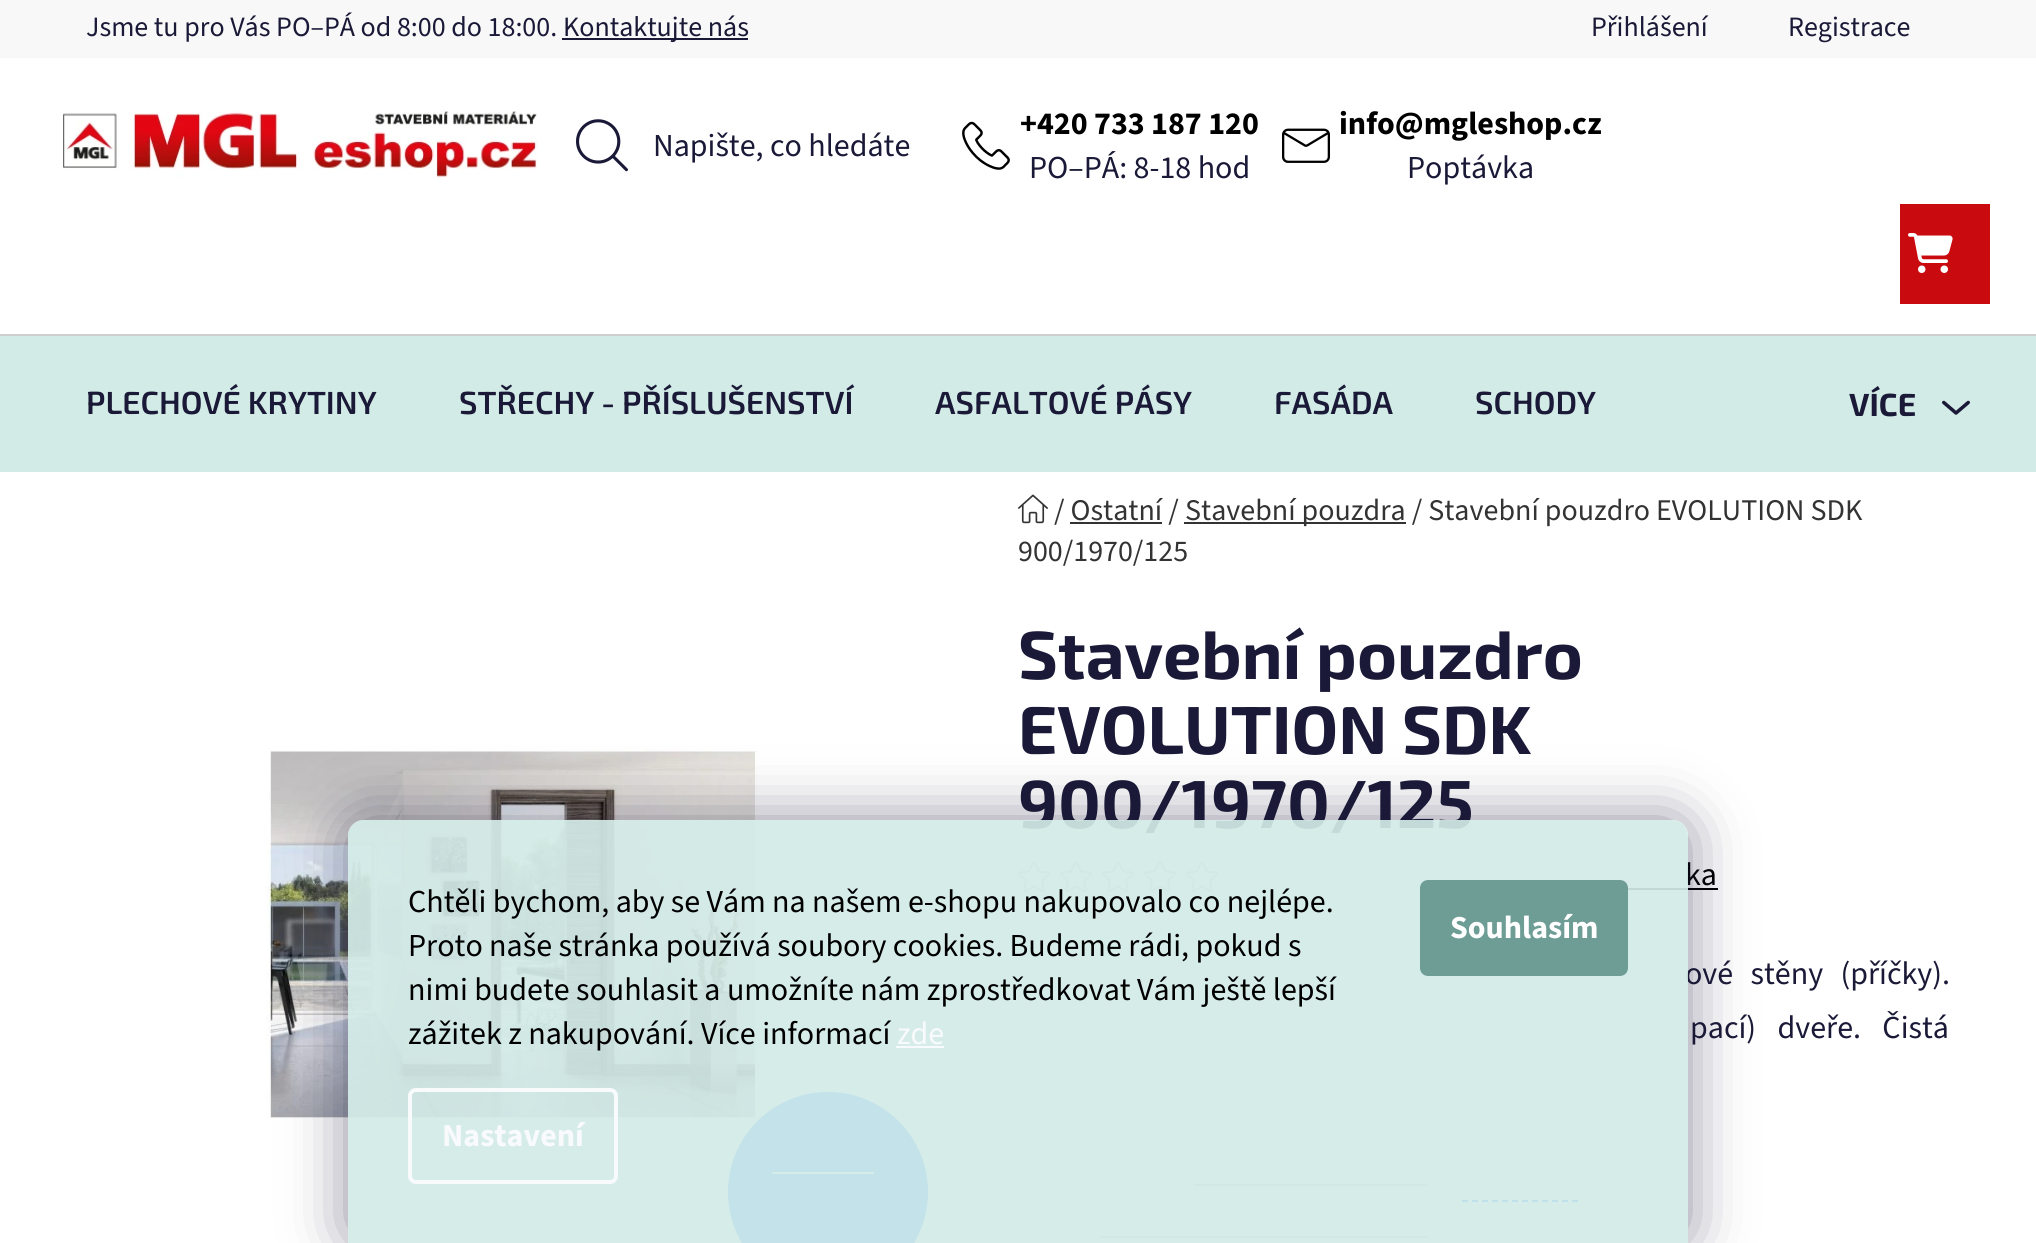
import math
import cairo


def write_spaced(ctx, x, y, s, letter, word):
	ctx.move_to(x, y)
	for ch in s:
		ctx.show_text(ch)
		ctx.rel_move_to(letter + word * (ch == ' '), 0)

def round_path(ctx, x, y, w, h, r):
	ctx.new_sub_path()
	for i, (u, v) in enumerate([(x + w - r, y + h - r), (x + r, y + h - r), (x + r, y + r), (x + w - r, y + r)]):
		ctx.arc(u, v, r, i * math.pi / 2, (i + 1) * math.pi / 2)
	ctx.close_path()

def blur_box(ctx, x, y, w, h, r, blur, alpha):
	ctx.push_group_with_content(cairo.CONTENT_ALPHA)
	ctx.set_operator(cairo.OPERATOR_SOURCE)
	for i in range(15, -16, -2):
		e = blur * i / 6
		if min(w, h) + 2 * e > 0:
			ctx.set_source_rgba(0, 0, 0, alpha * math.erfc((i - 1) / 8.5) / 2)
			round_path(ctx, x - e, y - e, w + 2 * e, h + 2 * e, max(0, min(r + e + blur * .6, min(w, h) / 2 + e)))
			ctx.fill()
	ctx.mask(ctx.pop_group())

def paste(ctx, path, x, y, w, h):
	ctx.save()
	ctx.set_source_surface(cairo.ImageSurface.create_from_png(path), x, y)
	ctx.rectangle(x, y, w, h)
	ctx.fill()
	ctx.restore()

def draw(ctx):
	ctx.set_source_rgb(1, 1, 1)
	ctx.paint()
	ctx.set_source_rgb(0.969, 0.969, 0.969)
	ctx.rectangle(0, 0, 2036, 58)
	ctx.fill()
	ctx.select_font_face('Source Sans 3')
	ctx.set_font_size(28)
	ctx.set_source_rgb(0.102, 0.098, 0.216)
	ctx.move_to(86, 36)
	ctx.show_text('Jsme tu pro Vás PO–PÁ od 8:00 do 18:00.')
	ctx.rectangle(562, 38, 186, 2)
	ctx.fill()
	for x, y, s in [
		(563, 36, 'Kontaktujte nás'),
		(1591, 36, 'Přihlášení'),
		(1788, 36, 'Registrace'),
	]:
		ctx.move_to(x, y)
		ctx.show_text(s)
	paste(ctx, 'media/1.png', 63, 111, 475, 67)
	paste(ctx, 'media/2.png', 576, 119, 52, 53)
	ctx.set_font_size(32)
	ctx.move_to(653, 156)
	ctx.show_text('Napište, co hledáte')
	paste(ctx, 'media/3.png', 962, 121, 48, 49)
	ctx.select_font_face('Source Sans 3', cairo.FONT_SLANT_NORMAL, cairo.FONT_WEIGHT_BOLD)
	ctx.set_source_rgb(0, 0, 0)
	ctx.move_to(1020, 134)
	ctx.show_text('+420 733 187 120')
	ctx.select_font_face('Source Sans 3')
	ctx.set_source_rgb(0.102, 0.098, 0.216)
	ctx.move_to(1029, 178)
	ctx.show_text('PO–PÁ: 8-18 hod')
	paste(ctx, 'media/4.png', 1282, 128, 48, 35)
	ctx.select_font_face('Source Sans 3', cairo.FONT_SLANT_NORMAL, cairo.FONT_WEIGHT_BOLD)
	ctx.set_source_rgb(0, 0, 0)
	ctx.move_to(1339, 134)
	ctx.show_text('info@mgleshop.cz')
	ctx.select_font_face('Source Sans 3')
	ctx.set_source_rgb(0.102, 0.098, 0.216)
	ctx.move_to(1407, 178)
	ctx.show_text('Poptávka')
	ctx.set_source_rgb(0.788, 0.043, 0.063)
	ctx.rectangle(1900, 204, 90, 100)
	ctx.fill()
	paste(ctx, 'media/5.png', 1908, 233, 45, 40)
	ctx.set_source_rgb(0.824, 0.918, 0.906)
	ctx.rectangle(0, 336, 2036, 136)
	ctx.fill()
	ctx.set_source_rgb(0.812, 0.812, 0.812)
	ctx.rectangle(0, 334, 2036, 2)
	ctx.fill()
	ctx.select_font_face('Exo 2 SemiBold')
	ctx.set_source_rgb(0.102, 0.098, 0.216)
	for x, y, s in [
		(86, 414, 'PLECHOVÉ KRYTINY'),
		(459, 414, 'STŘECHY - PŘÍSLUŠENSTVÍ'),
		(935, 414, 'ASFALTOVÉ PÁSY'),
		(1274, 414, 'FASÁDA'),
		(1475, 414, 'SCHODY'),
	]:
		ctx.move_to(x, y)
		ctx.show_text(s)
	ctx.select_font_face('Exo 2', cairo.FONT_SLANT_NORMAL, cairo.FONT_WEIGHT_BOLD)
	ctx.move_to(1849, 416)
	ctx.show_text('VÍCE')
	paste(ctx, 'media/6.png', 1942, 400, 28, 15)
	paste(ctx, 'media/7.png', 1018, 494, 30, 30)
	ctx.select_font_face('Source Sans 3')
	ctx.set_font_size(30)
	ctx.set_source_rgb(0.2, 0.2, 0.2)
	ctx.move_to(1054, 520)
	ctx.show_text('/ Ostatní /')
	ctx.rectangle(1184, 522, 222, 2)
	ctx.fill()
	ctx.move_to(1185, 520)
	ctx.show_text('Stavební pouzdra / Stavební pouzdro EVOLUTION SDK')
	ctx.rectangle(1070, 522, 92, 2)
	ctx.fill()
	ctx.move_to(1018, 561)
	ctx.show_text('900/1970/125')
	paste(ctx, 'media/8.png', 266, 749, 492, 371)
	ctx.set_source_rgb(0.114, 0.478, 0.973)
	ctx.arc(828, 1192, 100, 0, 2 * math.pi)
	ctx.fill()
	ctx.set_source_rgb(1, 1, 1)
	ctx.rectangle(772, 1172, 102, 2)
	ctx.fill()
	ctx.select_font_face('Exo 2', cairo.FONT_SLANT_NORMAL, cairo.FONT_WEIGHT_BOLD)
	ctx.set_font_size(68)
	ctx.set_source_rgb(0.102, 0.098, 0.216)
	for x, y, s in [
		(1018, 679, 'Stavební pouzdro'),
		(1018, 754, 'EVOLUTION SDK'),
		(1018, 828, '900/1970/125'),
	]:
		ctx.move_to(x, y)
		ctx.show_text(s)
	paste(ctx, 'media/9.png', 1018, 861, 32, 31)
	paste(ctx, 'media/9.png', 1060, 861, 32, 31)
	paste(ctx, 'media/9.png', 1102, 861, 32, 31)
	paste(ctx, 'media/9.png', 1144, 861, 32, 31)
	paste(ctx, 'media/9.png', 1186, 861, 32, 31)
	ctx.select_font_face('Source Sans 3')
	ctx.set_font_size(32)
	ctx.set_source_rgb(0, 0, 0)
	ctx.move_to(1685, 885)
	ctx.show_text('ka')
	ctx.rectangle(1628, 888, 90, 2)
	ctx.fill()
	ctx.set_source_rgb(0.102, 0.098, 0.216)
	write_spaced(ctx, 1685, 984, 'ové stěny (příčky).', 0, 11)
	write_spaced(ctx, 1690, 1038, 'pací) dveře. Čistá', 0, 15)
	ctx.set_source_rgb(0.812, 0.812, 0.812)
	ctx.rectangle(1194, 1184, 234, 2)
	ctx.fill()
	ctx.new_path()
	ctx.move_to(1462, 1201)
	ctx.line_to(1578, 1201)
	ctx.set_source_rgb(0, 0.384, 1)
	ctx.set_dash([6, 4])
	ctx.stroke()
	ctx.set_source_rgb(0.812, 0.812, 0.812)
	ctx.rectangle(1100, 1236, 328, 2)
	ctx.fill()
	ctx.save()
	ctx.set_fill_rule(cairo.FILL_RULE_EVEN_ODD)
	ctx.new_path()
	ctx.move_to(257, 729)
	ctx.line_to(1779, 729)
	ctx.line_to(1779, 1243)
	ctx.line_to(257, 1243)
	ctx.close_path()
	ctx.move_to(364, 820)
	ctx.line_to(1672, 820)
	ctx.curve_to(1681, 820, 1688, 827, 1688, 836)
	ctx.line_to(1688, 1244)
	ctx.line_to(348, 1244)
	ctx.line_to(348, 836)
	ctx.curve_to(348, 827, 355, 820, 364, 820)
	ctx.close_path()
	ctx.clip()
	ctx.set_source_rgb(0.106, 0.098, 0.224)
	blur_box(ctx, 348, 820, 1340, 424, 16, 30, 0.5)
	ctx.restore()
	ctx.set_source_rgba(0.824, 0.918, 0.906, 0.92)
	ctx.new_path()
	ctx.move_to(364, 820)
	ctx.line_to(1672, 820)
	ctx.curve_to(1681, 820, 1688, 827, 1688, 836)
	ctx.line_to(1688, 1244)
	ctx.line_to(348, 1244)
	ctx.line_to(348, 836)
	ctx.curve_to(348, 827, 355, 820, 364, 820)
	ctx.close_path()
	ctx.fill()
	ctx.set_source_rgb(0, 0, 0)
	for x, y, s in [
		(408, 912, 'Chtěli bychom, aby se Vám na našem e-shopu nakupovalo co nejlépe.'),
		(408, 956, 'Proto naše stránka používá soubory cookies. Budeme rádi, pokud s'),
		(408, 1000, 'nimi budete souhlasit a umožníte nám zprostředkovat Vám ještě lepší'),
		(408, 1044, 'zážitek z nakupování. Více informací'),
	]:
		ctx.move_to(x, y)
		ctx.show_text(s)
	ctx.set_source_rgb(0.973, 0.98, 0.984)
	ctx.rectangle(896, 1046, 48, 2)
	ctx.fill()
	ctx.move_to(897, 1044)
	ctx.show_text('zde')
	round_path(ctx, 410, 1090, 206, 92, 6)
	ctx.set_line_width(4)
	ctx.set_dash([])
	ctx.stroke()
	ctx.select_font_face('Source Sans 3', cairo.FONT_SLANT_NORMAL, cairo.FONT_WEIGHT_BOLD)
	ctx.move_to(442, 1146)
	ctx.show_text('Nastavení')
	ctx.set_source_rgb(0.431, 0.616, 0.588)
	round_path(ctx, 1420, 880, 208, 96, 8)
	ctx.fill()
	ctx.set_source_rgb(1, 1, 1)
	ctx.move_to(1450, 938)
	ctx.show_text('Souhlasím')


surface = cairo.ImageSurface(cairo.FORMAT_RGB24, 2036, 1243)
ctx = cairo.Context(surface)
options = cairo.FontOptions()
options.set_hint_metrics(cairo.HINT_METRICS_OFF)
options.set_hint_style(cairo.HINT_STYLE_NONE)
ctx.set_font_options(options)
ctx.set_miter_limit(4)
draw(ctx)
surface.write_to_png('image.png')
